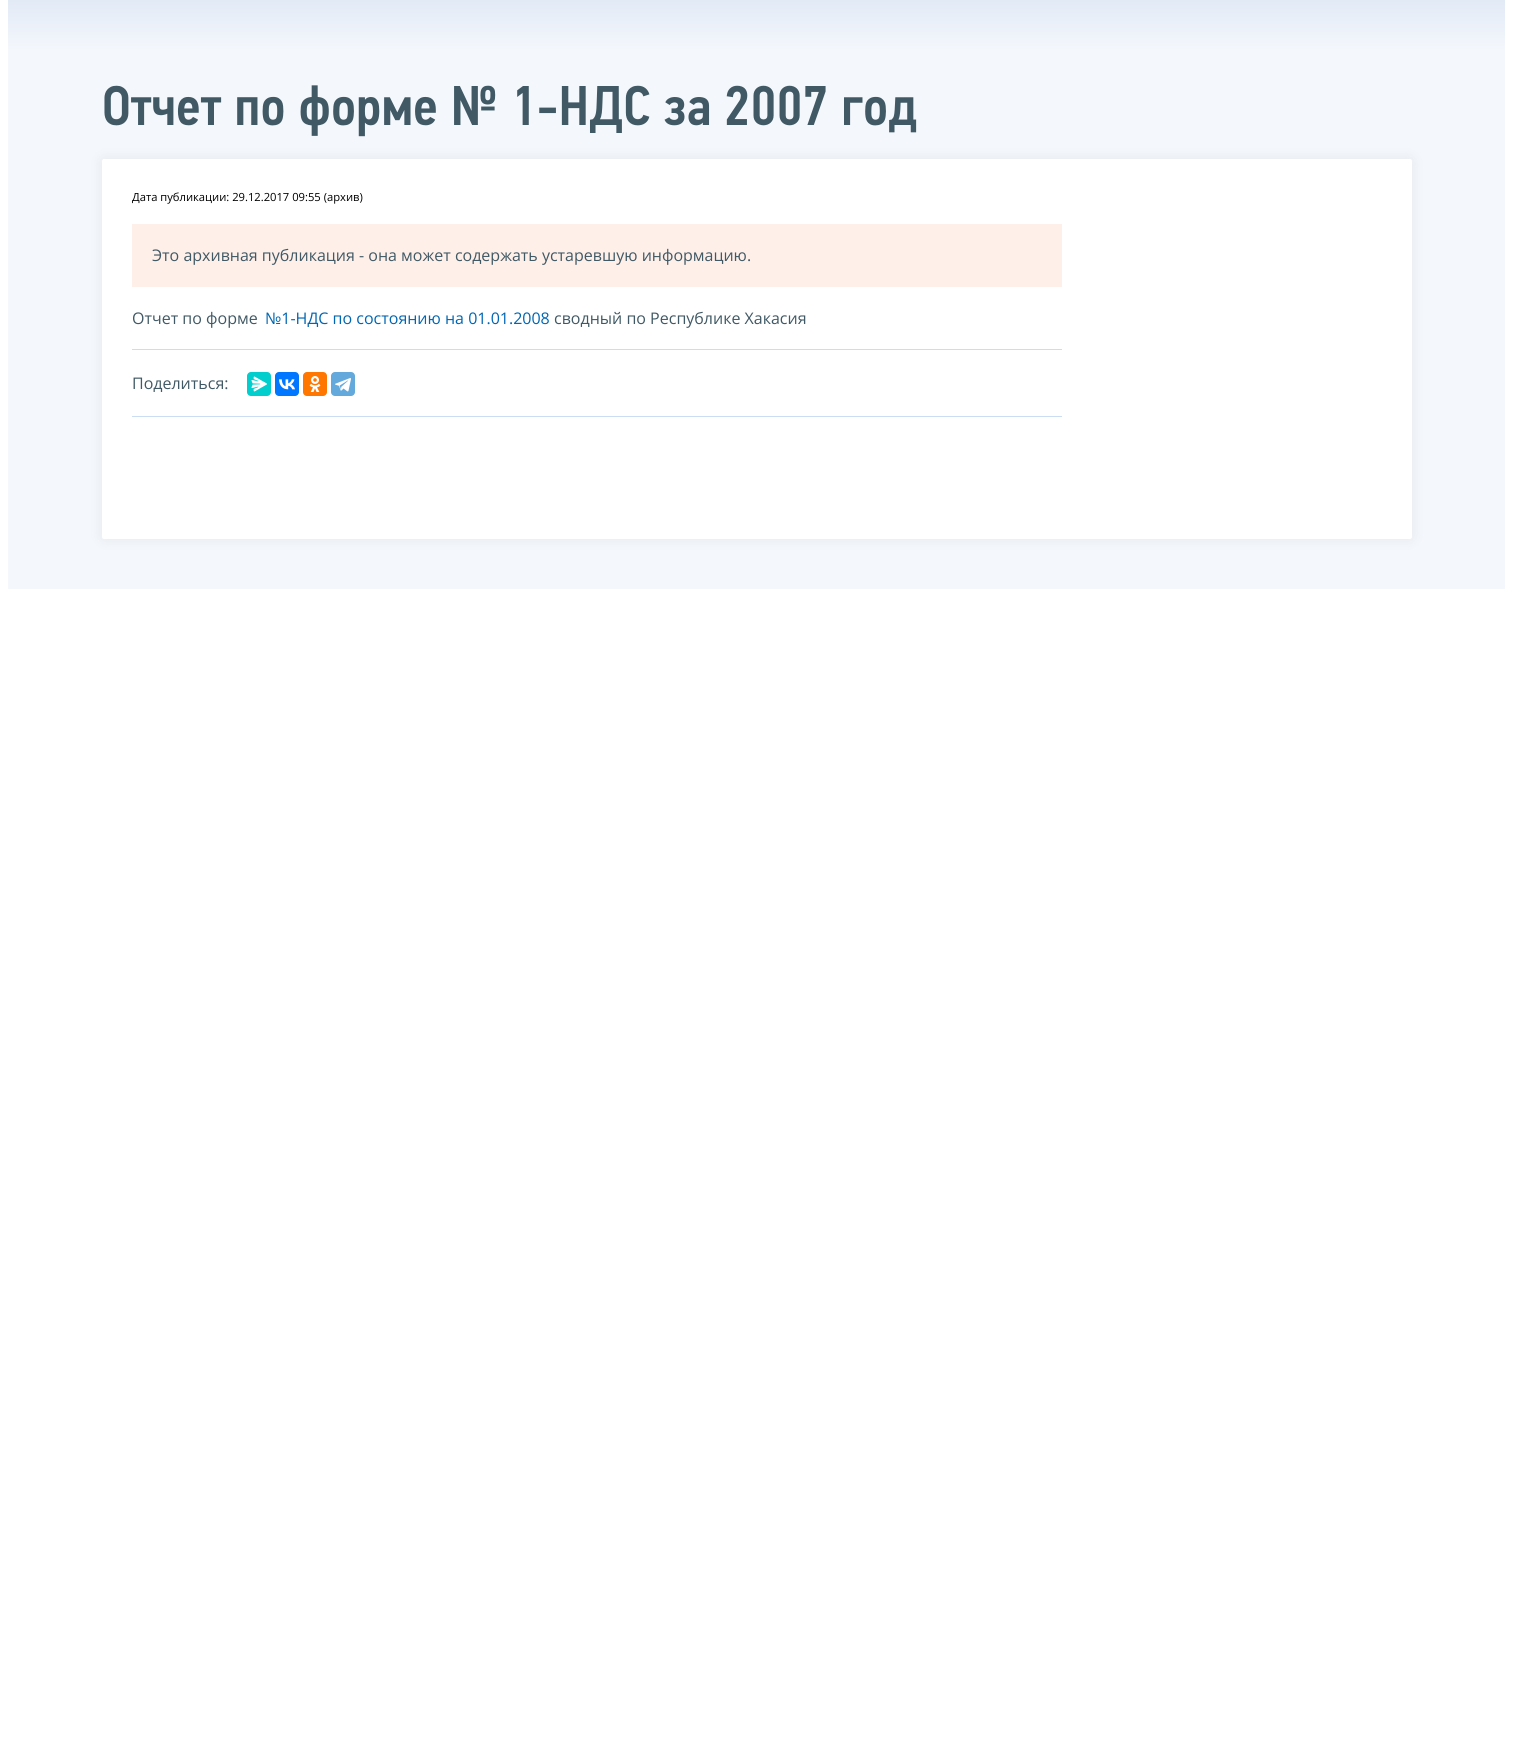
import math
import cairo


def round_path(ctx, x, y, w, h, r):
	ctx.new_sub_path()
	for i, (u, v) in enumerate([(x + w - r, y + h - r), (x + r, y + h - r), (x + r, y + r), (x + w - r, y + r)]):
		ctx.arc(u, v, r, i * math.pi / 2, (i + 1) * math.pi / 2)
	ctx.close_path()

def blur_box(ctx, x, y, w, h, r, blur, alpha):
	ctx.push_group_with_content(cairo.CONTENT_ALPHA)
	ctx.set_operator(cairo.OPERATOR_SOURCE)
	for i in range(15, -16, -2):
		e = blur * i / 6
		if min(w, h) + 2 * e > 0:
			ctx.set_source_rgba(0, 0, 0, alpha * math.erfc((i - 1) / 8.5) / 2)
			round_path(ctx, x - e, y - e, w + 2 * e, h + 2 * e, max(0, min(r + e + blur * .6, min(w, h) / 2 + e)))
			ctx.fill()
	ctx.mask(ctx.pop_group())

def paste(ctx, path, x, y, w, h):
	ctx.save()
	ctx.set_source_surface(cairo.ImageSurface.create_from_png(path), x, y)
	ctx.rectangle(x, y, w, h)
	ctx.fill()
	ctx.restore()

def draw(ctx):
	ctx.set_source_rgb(1, 1, 1)
	ctx.paint()
	ctx.set_source_rgb(0.957, 0.969, 0.988)
	ctx.rectangle(8, 50, 1497, 539)
	ctx.fill()
	gradient = cairo.LinearGradient(757, 0, 757, 50)
	gradient.add_color_stop_rgba(0, 0.886, 0.918, 0.965, 1)
	gradient.add_color_stop_rgba(1, 0.957, 0.969, 0.988, 1)
	ctx.set_source(gradient)
	ctx.rectangle(8, 0, 1497, 50)
	ctx.fill()
	ctx.set_source_rgb(0, 0, 0)
	blur_box(ctx, 102, 159, 1310, 380, 2, 7.5, 0.07)
	paste(ctx, 'media/1.png', 104, 85, 813, 52)
	ctx.set_source_rgb(1, 1, 1)
	round_path(ctx, 102, 159, 1310, 380, 2)
	ctx.fill()
	ctx.select_font_face('Open Sans')
	ctx.set_font_size(11.2)
	ctx.set_source_rgb(0, 0, 0)
	ctx.move_to(132, 201)
	ctx.show_text('Дата публикации: 29.12.2017 09:55 (архив)')
	ctx.set_source_rgb(0.996, 0.937, 0.914)
	ctx.rectangle(132, 224, 930, 63)
	ctx.fill()
	ctx.set_font_size(16)
	ctx.set_source_rgb(0.251, 0.349, 0.396)
	ctx.move_to(152, 261)
	ctx.show_text('Это архивная публикация - она может содержать устаревшую информацию.')
	ctx.move_to(132, 324)
	ctx.show_text('Отчет по форме')
	ctx.set_source_rgb(0, 0.4, 0.702)
	ctx.move_to(265, 324)
	ctx.show_text('№1-НДС по состоянию на 01.01.2008')
	ctx.set_source_rgb(0.251, 0.349, 0.396)
	ctx.move_to(554, 324)
	ctx.show_text('сводный по Республике Хакасия')
	ctx.set_source_rgb(0.792, 0.867, 0.949)
	ctx.rectangle(132, 349, 930, 1)
	ctx.fill()
	ctx.rectangle(132, 416, 930, 1)
	ctx.fill()
	ctx.set_source_rgb(0.251, 0.349, 0.396)
	ctx.move_to(132, 389)
	ctx.show_text('Поделиться:')
	ctx.set_source_rgb(0.012, 0.808, 0.808)
	round_path(ctx, 247, 372, 24, 24, 4)
	ctx.fill()
	paste(ctx, 'media/2.png', 251, 376, 16, 16)
	ctx.set_source_rgb(0, 0.467, 1)
	round_path(ctx, 275, 372, 24, 24, 4)
	ctx.fill()
	paste(ctx, 'media/3.png', 279, 379, 16, 11)
	ctx.set_source_rgb(1, 0.467, 0)
	round_path(ctx, 303, 372, 24, 24, 4)
	ctx.fill()
	paste(ctx, 'media/4.png', 309, 376, 12, 16)
	ctx.set_source_rgb(0.392, 0.663, 0.863)
	round_path(ctx, 331, 372, 24, 24, 4)
	ctx.fill()
	paste(ctx, 'media/5.png', 335, 378, 16, 14)


surface = cairo.ImageSurface(cairo.FORMAT_RGB24, 1513, 1752)
ctx = cairo.Context(surface)
options = cairo.FontOptions()
options.set_hint_metrics(cairo.HINT_METRICS_OFF)
options.set_hint_style(cairo.HINT_STYLE_NONE)
ctx.set_font_options(options)
ctx.set_miter_limit(4)
draw(ctx)
surface.write_to_png('image.png')
